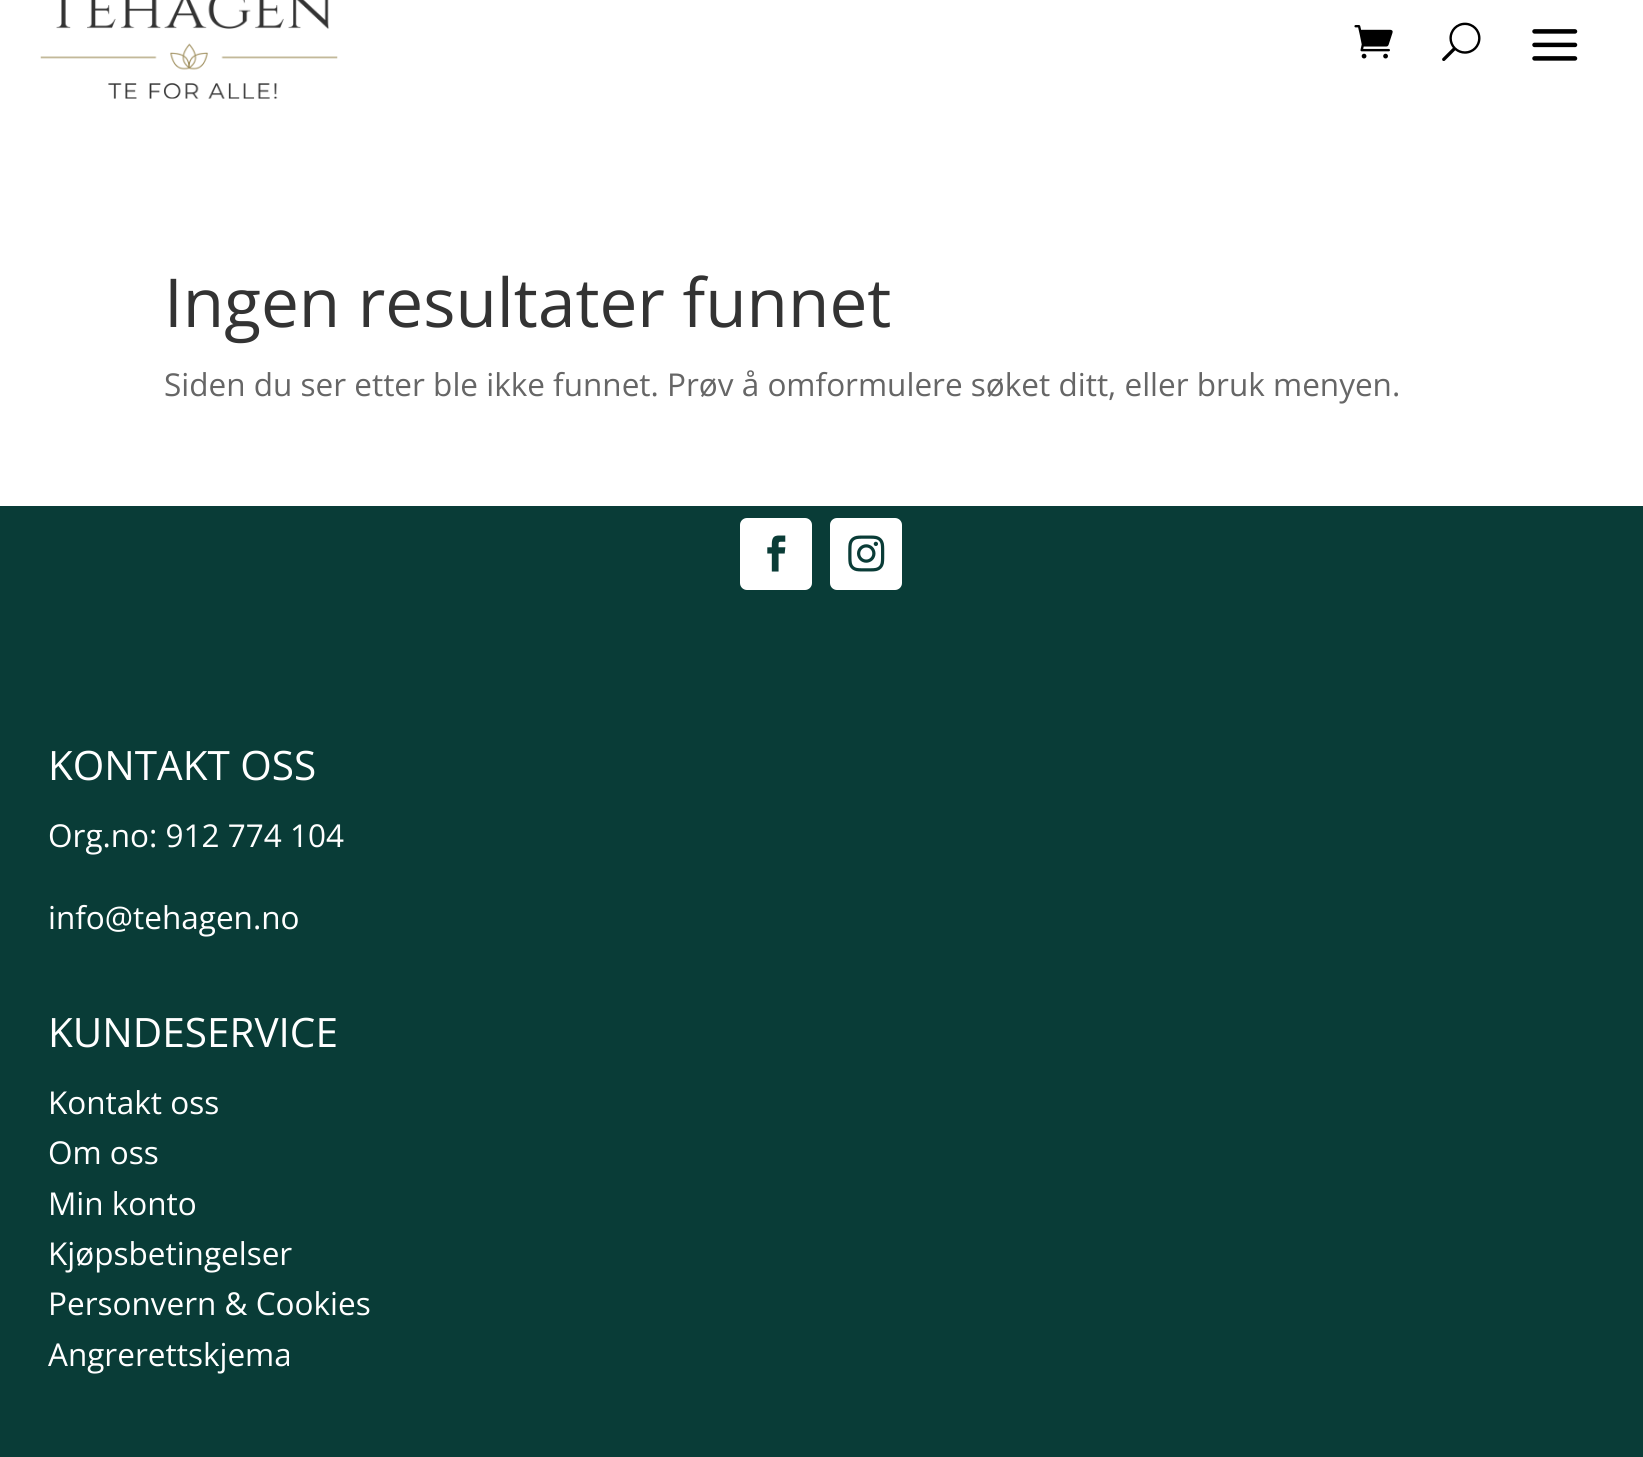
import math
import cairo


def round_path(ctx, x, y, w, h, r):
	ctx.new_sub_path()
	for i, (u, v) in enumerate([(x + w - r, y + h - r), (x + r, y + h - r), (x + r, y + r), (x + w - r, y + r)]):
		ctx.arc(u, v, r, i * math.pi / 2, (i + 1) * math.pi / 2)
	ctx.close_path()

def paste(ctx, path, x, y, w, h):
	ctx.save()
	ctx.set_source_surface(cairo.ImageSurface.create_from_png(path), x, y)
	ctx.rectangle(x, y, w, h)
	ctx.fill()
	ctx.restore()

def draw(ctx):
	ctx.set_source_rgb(1, 1, 1)
	ctx.paint()
	paste(ctx, 'media/1.png', 40, 0, 298, 99)
	paste(ctx, 'media/2.png', 1354, 25, 39, 34)
	paste(ctx, 'media/3.png', 1442, 22, 39, 39)
	paste(ctx, 'media/4.png', 1532, 29, 46, 32)
	ctx.select_font_face('Open Sans')
	ctx.set_font_size(67.5)
	ctx.set_source_rgb(0.2, 0.2, 0.2)
	ctx.move_to(164, 327)
	ctx.show_text('Ingen resultater funnet')
	ctx.set_font_size(31.5)
	ctx.set_source_rgb(0.4, 0.4, 0.4)
	ctx.move_to(164, 396)
	ctx.show_text('Siden du ser etter ble ikke funnet. Prøv å omformulere søket ditt, eller bruk menyen.')
	ctx.set_source_rgb(0.039, 0.235, 0.216)
	ctx.rectangle(0, 506, 1643, 951)
	ctx.fill()
	ctx.set_source_rgb(1, 1, 1)
	round_path(ctx, 740, 518, 72, 72, 7)
	ctx.fill()
	paste(ctx, 'media/5.png', 767, 535, 19, 37)
	round_path(ctx, 830, 518, 72, 72, 7)
	ctx.fill()
	paste(ctx, 'media/6.png', 848, 535, 37, 37)
	ctx.set_font_size(40.5)
	ctx.move_to(48, 780)
	ctx.show_text('KONTAKT OSS')
	ctx.set_font_size(31.5)
	ctx.move_to(48, 847)
	ctx.show_text('Org.no: 912 774 104')
	ctx.move_to(48, 929)
	ctx.show_text('info@tehagen.no')
	ctx.set_font_size(40.5)
	ctx.move_to(48, 1047)
	ctx.show_text('KUNDESERVICE')
	ctx.set_font_size(31.5)
	for x, y, s in [
		(48, 1114, 'Kontakt oss'),
		(48, 1164, 'Om oss'),
		(48, 1215, 'Min konto'),
		(48, 1265, 'Kjøpsbetingelser'),
		(48, 1315, 'Personvern & Cookies'),
		(48, 1366, 'Angrerettskjema'),
	]:
		ctx.move_to(x, y)
		ctx.show_text(s)


surface = cairo.ImageSurface(cairo.FORMAT_RGB24, 1643, 1457)
ctx = cairo.Context(surface)
options = cairo.FontOptions()
options.set_hint_metrics(cairo.HINT_METRICS_OFF)
options.set_hint_style(cairo.HINT_STYLE_NONE)
ctx.set_font_options(options)
ctx.set_miter_limit(4)
draw(ctx)
surface.write_to_png('image.png')
